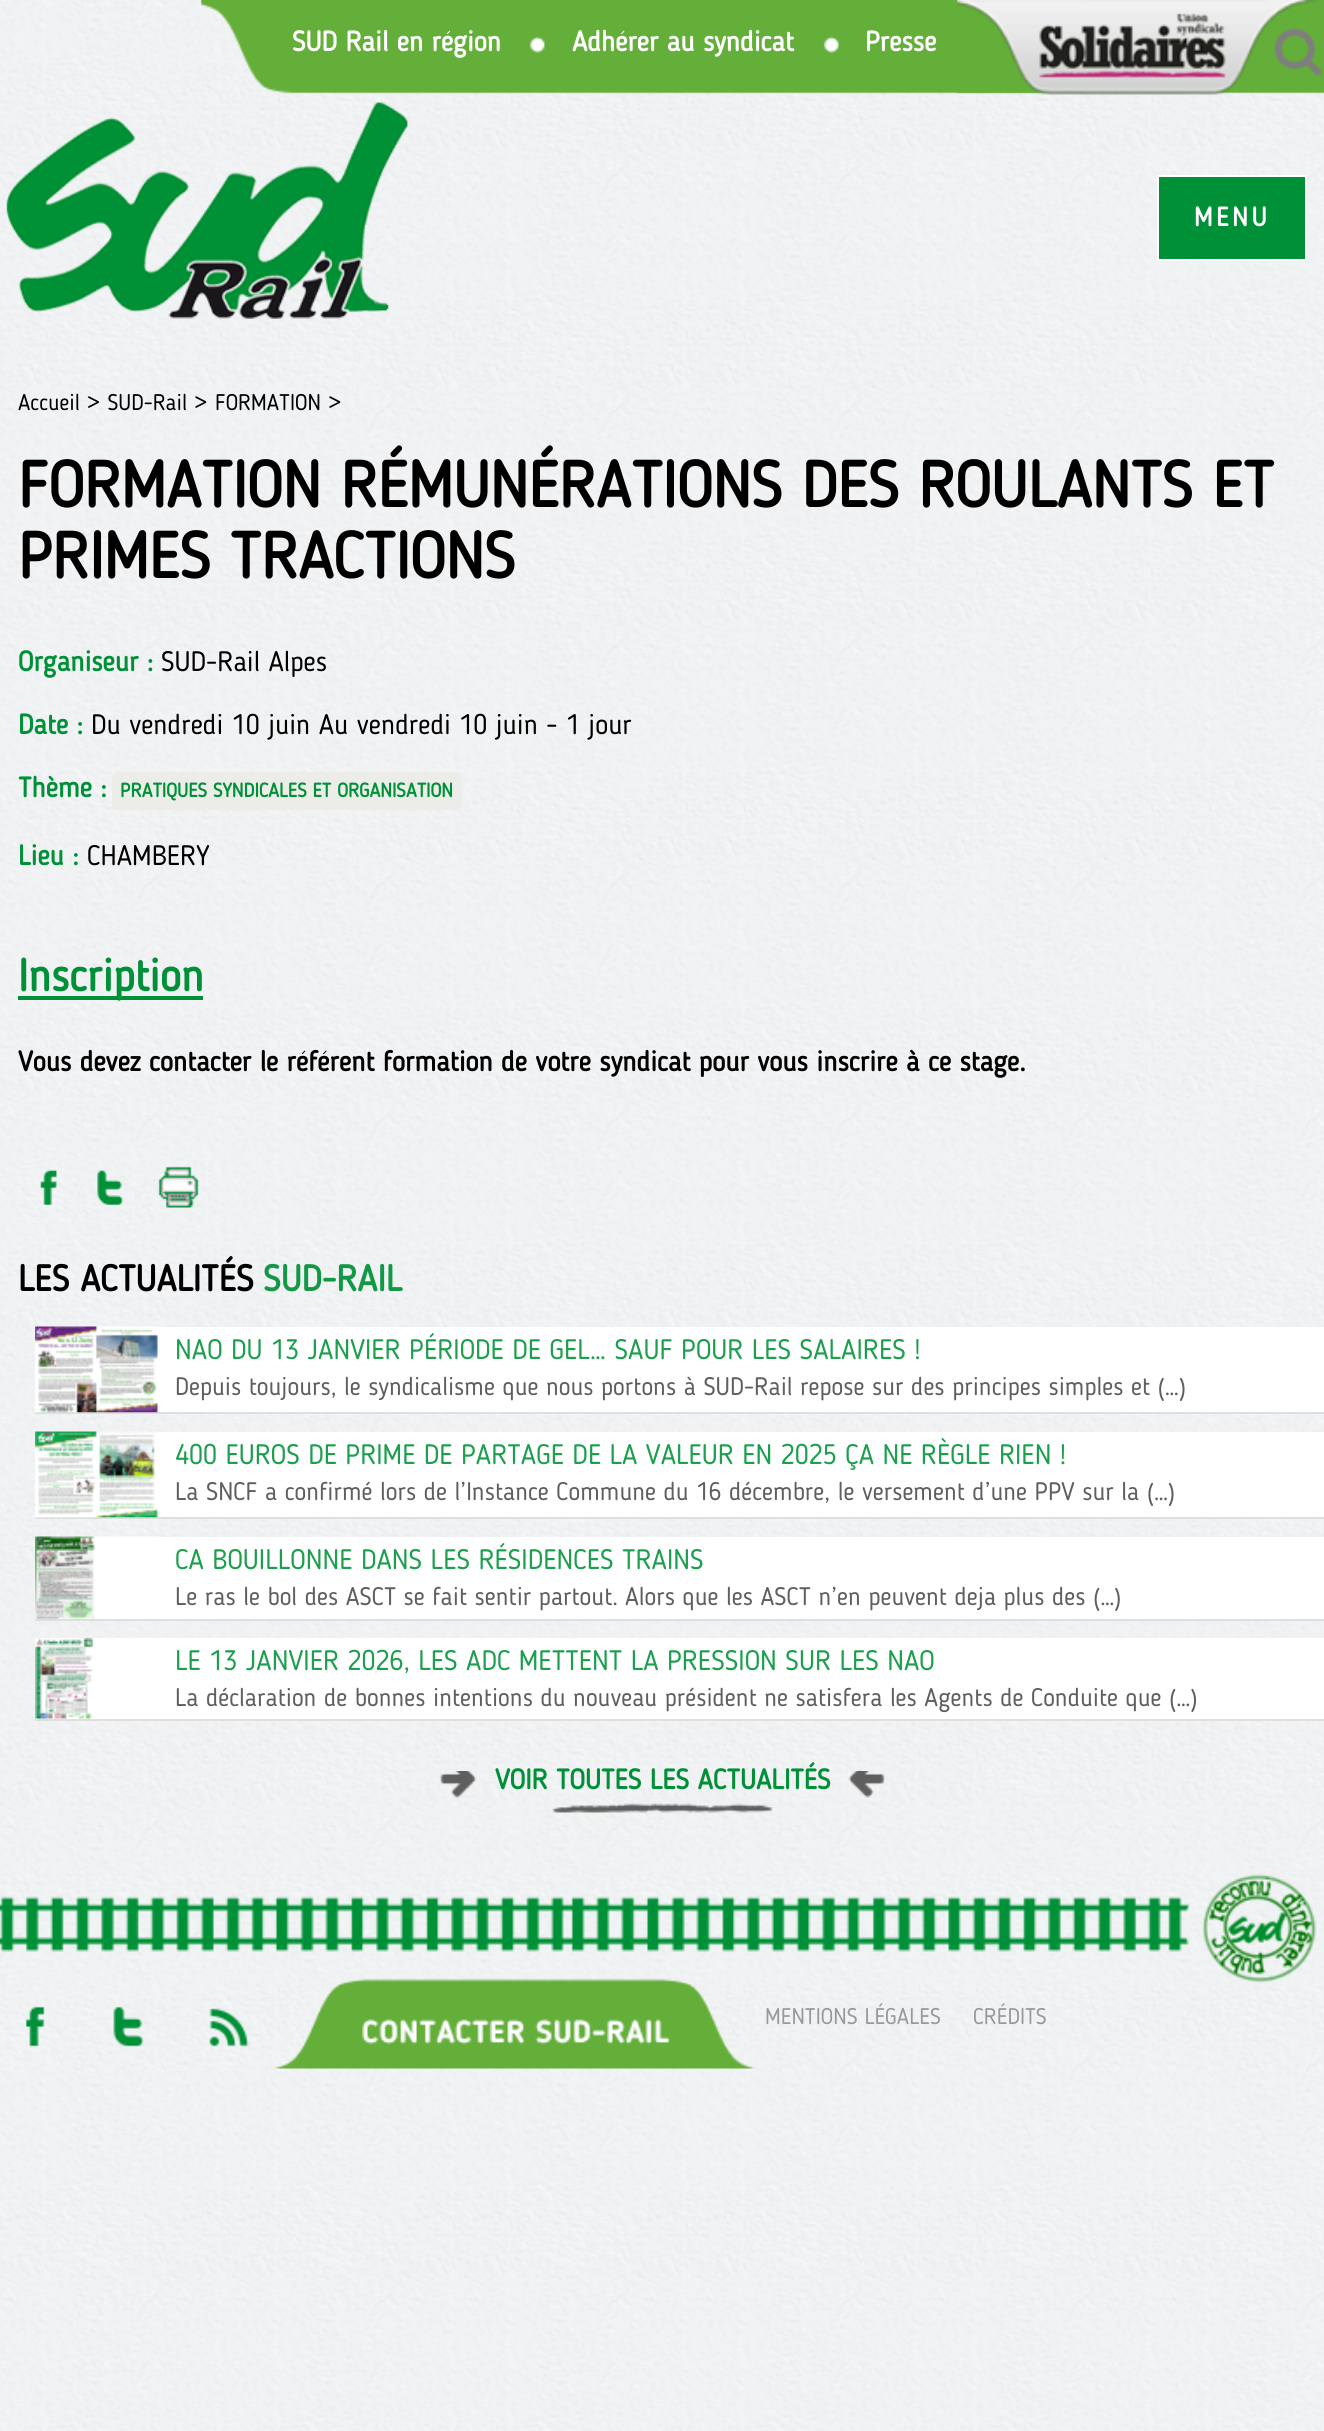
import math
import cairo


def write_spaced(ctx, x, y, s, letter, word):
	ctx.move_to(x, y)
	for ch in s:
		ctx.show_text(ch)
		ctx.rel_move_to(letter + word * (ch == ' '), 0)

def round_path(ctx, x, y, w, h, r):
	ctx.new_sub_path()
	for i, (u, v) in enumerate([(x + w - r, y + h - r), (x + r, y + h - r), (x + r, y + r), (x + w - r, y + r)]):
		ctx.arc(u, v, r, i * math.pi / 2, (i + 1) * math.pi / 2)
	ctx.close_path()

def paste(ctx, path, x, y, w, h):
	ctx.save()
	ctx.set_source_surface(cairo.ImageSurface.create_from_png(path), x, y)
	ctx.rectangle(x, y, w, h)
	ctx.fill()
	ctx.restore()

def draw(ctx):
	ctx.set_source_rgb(1, 1, 1)
	ctx.paint()
	paste(ctx, 'media/1.png', 0, 0, 1324, 2431)
	paste(ctx, 'media/2.png', 201, 0, 1123, 94)
	ctx.select_font_face('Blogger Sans', cairo.FONT_SLANT_NORMAL, cairo.FONT_WEIGHT_BOLD)
	ctx.set_font_size(28)
	ctx.set_source_rgb(1, 1, 1)
	ctx.move_to(292, 51)
	ctx.show_text('SUD Rail en région')
	paste(ctx, 'media/3.png', 529, 36, 16, 17)
	ctx.move_to(572, 51)
	ctx.show_text('Adhérer au syndicat')
	paste(ctx, 'media/3.png', 823, 36, 16, 17)
	ctx.move_to(865, 51)
	ctx.show_text('Presse')
	paste(ctx, 'media/4.png', 957, 0, 310, 95)
	paste(ctx, 'media/5.png', 1267, 0, 55, 76)
	paste(ctx, 'media/6.png', 6, 102, 402, 217)
	ctx.set_source_rgb(0, 0.565, 0.216)
	ctx.rectangle(1158, 176, 148, 84)
	ctx.fill_preserve()
	ctx.set_source_rgb(1, 1, 1)
	ctx.stroke()
	ctx.set_font_size(26.5)
	write_spaced(ctx, 1194, 226, 'MENU', 3.5, 0)
	ctx.select_font_face('Blogger Sans')
	ctx.set_font_size(22.5)
	ctx.set_source_rgb(0, 0, 0)
	ctx.move_to(18, 410)
	ctx.show_text('Accueil > SUD-Rail >')
	ctx.move_to(215, 410)
	ctx.show_text('FORMATION >')
	ctx.select_font_face('Blogger Sans', cairo.FONT_SLANT_NORMAL, cairo.FONT_WEIGHT_BOLD)
	ctx.set_font_size(64.4)
	ctx.move_to(18, 507)
	ctx.show_text('FORMATION RÉMUNÉRATIONS DES ROULANTS ET')
	ctx.move_to(18, 578)
	ctx.show_text('PRIMES TRACTIONS')
	ctx.set_font_size(28)
	ctx.set_source_rgb(0, 0.565, 0.22)
	ctx.move_to(18, 671)
	ctx.show_text('Organiseur :')
	ctx.select_font_face('Blogger Sans')
	ctx.set_source_rgb(0, 0, 0)
	ctx.move_to(161, 671)
	ctx.show_text('SUD-Rail Alpes')
	ctx.select_font_face('Blogger Sans', cairo.FONT_SLANT_NORMAL, cairo.FONT_WEIGHT_BOLD)
	ctx.set_source_rgb(0, 0.565, 0.22)
	ctx.move_to(18, 734)
	ctx.show_text('Date :')
	ctx.select_font_face('Blogger Sans')
	ctx.set_source_rgb(0, 0, 0)
	ctx.move_to(91, 734)
	ctx.show_text('Du vendredi 10 juin Au vendredi 10 juin - 1 jour')
	ctx.select_font_face('Blogger Sans', cairo.FONT_SLANT_NORMAL, cairo.FONT_WEIGHT_BOLD)
	ctx.set_source_rgb(0, 0.565, 0.22)
	ctx.move_to(18, 797)
	ctx.show_text('Thème :')
	ctx.set_source_rgb(0.922, 0.922, 0.914)
	round_path(ctx, 112, 772, 350, 38, 7)
	ctx.fill()
	ctx.set_font_size(19.6)
	ctx.set_source_rgb(0, 0.565, 0.22)
	ctx.move_to(120, 797)
	ctx.show_text('PRATIQUES SYNDICALES ET ORGANISATION')
	ctx.set_font_size(28)
	ctx.move_to(18, 865)
	ctx.show_text('Lieu :')
	ctx.select_font_face('Blogger Sans')
	ctx.set_source_rgb(0, 0, 0)
	ctx.move_to(87, 865)
	ctx.show_text('CHAMBERY')
	ctx.set_source_rgb(0, 0.565, 0.22)
	ctx.rectangle(18, 996, 185, 4)
	ctx.fill()
	ctx.select_font_face('Blogger Sans', cairo.FONT_SLANT_NORMAL, cairo.FONT_WEIGHT_BOLD)
	ctx.set_font_size(45)
	ctx.move_to(18, 991)
	ctx.show_text('Inscription')
	ctx.set_font_size(28)
	ctx.set_source_rgb(0, 0, 0)
	ctx.move_to(18, 1071)
	ctx.show_text('Vous devez contacter le référent formation de votre syndicat pour vous inscrire à ce stage.')
	paste(ctx, 'media/7.png', 18, 1145, 55, 78)
	paste(ctx, 'media/8.png', 82, 1145, 56, 78)
	paste(ctx, 'media/9.png', 147, 1140, 65, 89)
	ctx.set_font_size(36.5)
	ctx.move_to(18, 1291)
	ctx.show_text('LES ACTUALITÉS')
	ctx.set_source_rgb(0.078, 0.596, 0.271)
	ctx.move_to(263, 1291)
	ctx.show_text('SUD-RAIL')
	ctx.set_source_rgb(1, 1, 1)
	ctx.rectangle(157, 1327, 1167, 85)
	ctx.fill()
	ctx.set_source_rgb(0.871, 0.878, 0.875)
	ctx.rectangle(35, 1412, 1289, 2)
	ctx.fill()
	paste(ctx, 'media/10.png', 35, 1326, 123, 87)
	ctx.select_font_face('Blogger Sans')
	ctx.set_font_size(28)
	ctx.set_source_rgb(0.118, 0.624, 0.31)
	ctx.move_to(175, 1359)
	ctx.show_text('NAO DU 13 JANVIER PÉRIODE DE GEL… SAUF POUR LES SALAIRES !')
	ctx.set_font_size(25.2)
	ctx.set_source_rgb(0.373, 0.373, 0.373)
	ctx.move_to(175, 1395)
	ctx.show_text('Depuis toujours, le syndicalisme que nous portons à SUD-Rail repose sur des principes simples et (…)')
	ctx.set_source_rgb(1, 1, 1)
	ctx.rectangle(157, 1432, 1167, 85)
	ctx.fill()
	ctx.set_source_rgb(0.871, 0.878, 0.875)
	ctx.rectangle(35, 1517, 1289, 2)
	ctx.fill()
	paste(ctx, 'media/11.png', 35, 1431, 123, 87)
	ctx.set_font_size(28)
	ctx.set_source_rgb(0.118, 0.624, 0.31)
	ctx.move_to(175, 1464)
	ctx.show_text('400 EUROS DE PRIME DE PARTAGE DE LA VALEUR EN 2025 ÇA NE RÈGLE RIEN !')
	ctx.set_font_size(25.2)
	ctx.set_source_rgb(0.373, 0.373, 0.373)
	ctx.move_to(175, 1500)
	ctx.show_text('La SNCF a confirmé lors de l’Instance Commune du 16 décembre, le versement d’une PPV sur la (…)')
	ctx.set_source_rgb(1, 1, 1)
	ctx.rectangle(35, 1537, 1289, 82)
	ctx.fill()
	ctx.set_source_rgb(0.871, 0.878, 0.875)
	ctx.rectangle(35, 1619, 1289, 2)
	ctx.fill()
	paste(ctx, 'media/12.png', 35, 1536, 122, 83)
	ctx.set_font_size(28)
	ctx.set_source_rgb(0.118, 0.624, 0.31)
	ctx.move_to(175, 1569)
	ctx.show_text('CA BOUILLONNE DANS LES RÉSIDENCES TRAINS')
	ctx.set_font_size(25.2)
	ctx.set_source_rgb(0.373, 0.373, 0.373)
	ctx.move_to(175, 1605)
	ctx.show_text('Le ras le bol des ASCT se fait sentir partout.')
	ctx.move_to(625, 1605)
	ctx.show_text('Alors que les ASCT n’en peuvent deja plus des (…)')
	ctx.set_source_rgb(1, 1, 1)
	ctx.rectangle(35, 1638, 1289, 81)
	ctx.fill()
	ctx.set_source_rgb(0.871, 0.878, 0.875)
	ctx.rectangle(35, 1719, 1289, 2)
	ctx.fill()
	paste(ctx, 'media/13.png', 35, 1638, 59, 81)
	ctx.set_font_size(28)
	ctx.set_source_rgb(0.118, 0.624, 0.31)
	ctx.move_to(175, 1670)
	ctx.show_text('LE 13 JANVIER 2026, LES ADC METTENT LA PRESSION SUR LES NAO')
	ctx.set_font_size(25.2)
	ctx.set_source_rgb(0.373, 0.373, 0.373)
	ctx.move_to(175, 1706)
	ctx.show_text('La déclaration de bonnes intentions du nouveau président ne satisfera les Agents de Conduite que (…)')
	paste(ctx, 'media/14.png', 548, 1799, 229, 21)
	paste(ctx, 'media/15.png', 436, 1771, 42, 30)
	ctx.select_font_face('Blogger Sans', cairo.FONT_SLANT_NORMAL, cairo.FONT_WEIGHT_BOLD)
	ctx.set_font_size(28)
	ctx.set_source_rgb(0, 0.565, 0.22)
	ctx.move_to(495, 1789)
	ctx.show_text('VOIR TOUTES LES ACTUALITÉS')
	paste(ctx, 'media/16.png', 847, 1771, 38, 30)
	paste(ctx, 'media/17.png', 0, 1874, 1324, 112)
	paste(ctx, 'media/18.png', 0, 1978, 63, 89)
	paste(ctx, 'media/19.png', 96, 1980, 65, 87)
	paste(ctx, 'media/20.png', 194, 1979, 67, 88)
	paste(ctx, 'media/21.png', 270, 1974, 485, 95)
	ctx.select_font_face('Blogger Sans')
	ctx.set_font_size(22.5)
	ctx.set_source_rgb(0.6, 0.6, 0.6)
	ctx.move_to(765, 2024)
	ctx.show_text('MENTIONS LÉGALES')
	ctx.move_to(973, 2024)
	ctx.show_text('CRÉDITS')


surface = cairo.ImageSurface(cairo.FORMAT_RGB24, 1324, 2431)
ctx = cairo.Context(surface)
options = cairo.FontOptions()
options.set_hint_metrics(cairo.HINT_METRICS_OFF)
options.set_hint_style(cairo.HINT_STYLE_NONE)
ctx.set_font_options(options)
ctx.set_miter_limit(4)
draw(ctx)
surface.write_to_png('image.png')
